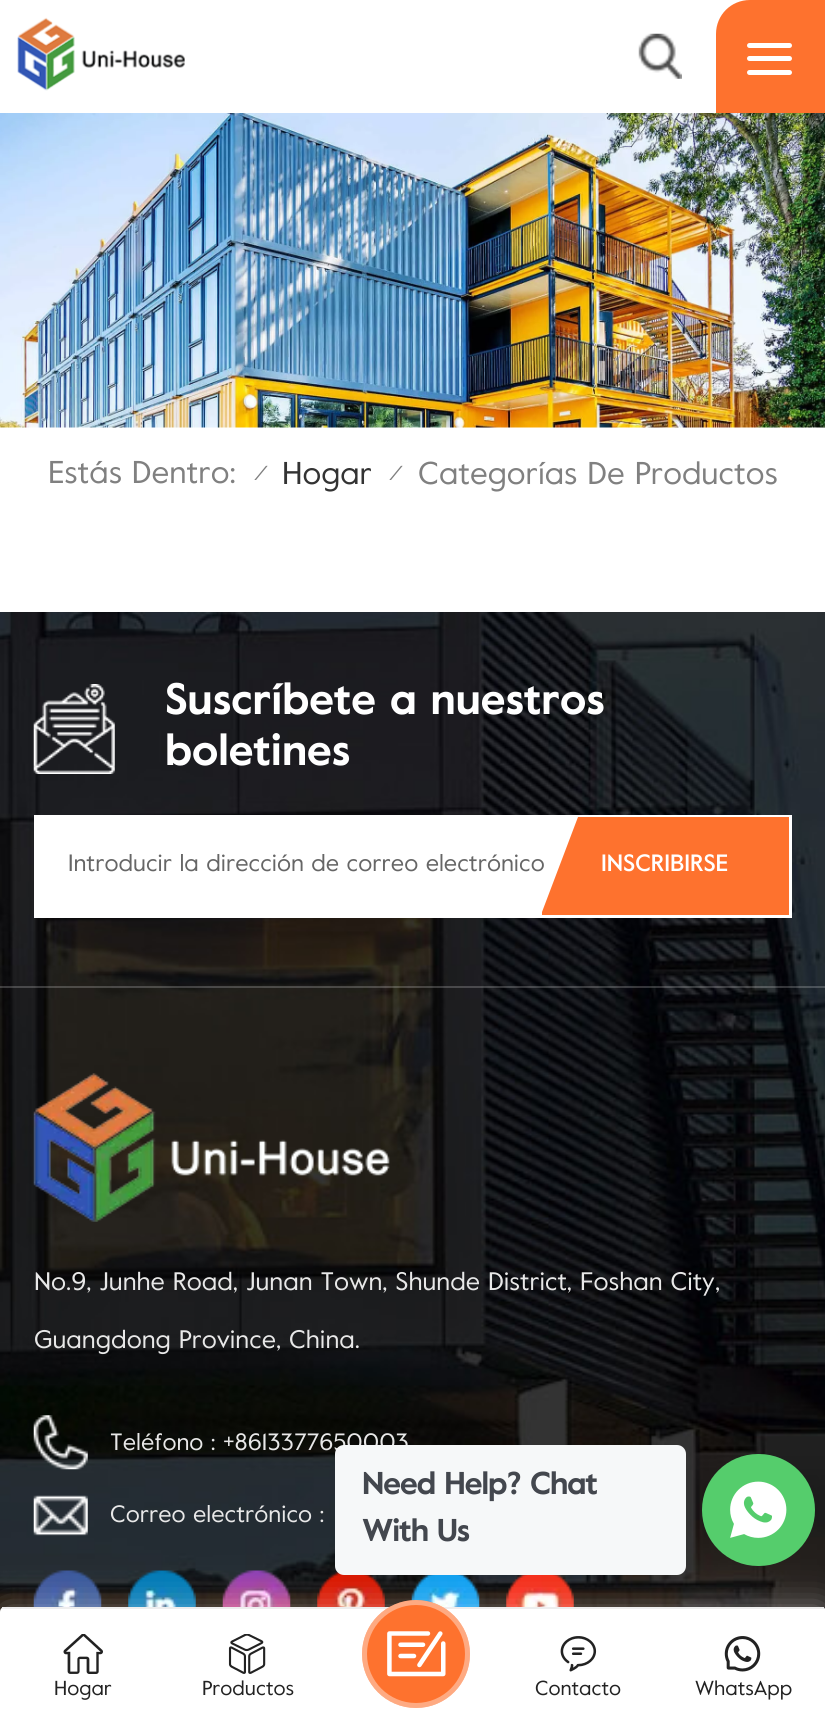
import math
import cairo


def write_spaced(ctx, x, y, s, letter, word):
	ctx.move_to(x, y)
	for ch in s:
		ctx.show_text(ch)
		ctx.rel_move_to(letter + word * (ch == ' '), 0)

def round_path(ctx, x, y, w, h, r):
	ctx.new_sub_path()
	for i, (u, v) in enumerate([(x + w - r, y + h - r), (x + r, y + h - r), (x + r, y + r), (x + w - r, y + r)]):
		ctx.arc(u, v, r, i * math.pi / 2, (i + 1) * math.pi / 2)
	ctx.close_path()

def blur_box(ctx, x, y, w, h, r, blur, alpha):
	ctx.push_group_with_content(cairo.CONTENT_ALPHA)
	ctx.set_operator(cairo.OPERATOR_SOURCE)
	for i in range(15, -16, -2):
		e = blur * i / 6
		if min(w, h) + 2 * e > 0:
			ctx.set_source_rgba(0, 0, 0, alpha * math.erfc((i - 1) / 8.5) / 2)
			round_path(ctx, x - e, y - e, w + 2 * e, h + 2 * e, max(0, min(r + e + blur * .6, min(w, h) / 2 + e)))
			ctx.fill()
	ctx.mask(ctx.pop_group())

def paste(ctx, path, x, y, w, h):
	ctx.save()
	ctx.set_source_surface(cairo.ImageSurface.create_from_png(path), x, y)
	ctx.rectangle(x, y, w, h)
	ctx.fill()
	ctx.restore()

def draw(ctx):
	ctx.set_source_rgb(1, 1, 1)
	ctx.paint()
	paste(ctx, 'media/1.png', 17, 17, 168, 74)
	paste(ctx, 'media/2.png', 638, 33, 44, 46)
	ctx.set_source_rgb(0.996, 0.447, 0.18)
	ctx.new_path()
	ctx.move_to(750, 0)
	ctx.line_to(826, 0)
	ctx.line_to(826, 113)
	ctx.line_to(716, 113)
	ctx.line_to(716, 34)
	ctx.curve_to(716, 15, 731, 0, 750, 0)
	ctx.close_path()
	ctx.fill()
	ctx.set_source_rgb(1, 1, 1)
	round_path(ctx, 747, 56, 45, 5, 2.5)
	ctx.fill()
	round_path(ctx, 747, 43, 45, 5, 2.5)
	ctx.fill()
	round_path(ctx, 747, 70, 45, 5, 2.5)
	ctx.fill()
	paste(ctx, 'media/3.png', 0, 113, 825, 315)
	ctx.select_font_face('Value')
	ctx.set_font_size(31.5)
	ctx.set_source_rgb(0.502, 0.502, 0.502)
	ctx.move_to(48, 483)
	ctx.show_text('Estás Dentro:')
	ctx.select_font_face('Value', cairo.FONT_SLANT_ITALIC)
	ctx.set_font_size(20.25)
	ctx.move_to(254, 480)
	ctx.show_text('/')
	ctx.select_font_face('Value')
	ctx.set_font_size(31.5)
	ctx.set_source_rgb(0.2, 0.2, 0.2)
	ctx.move_to(282, 484)
	ctx.show_text('Hogar')
	ctx.select_font_face('Value', cairo.FONT_SLANT_ITALIC)
	ctx.set_font_size(20.25)
	ctx.set_source_rgb(0.502, 0.502, 0.502)
	ctx.move_to(389, 480)
	ctx.show_text('/')
	ctx.select_font_face('Value')
	ctx.set_font_size(31.5)
	ctx.move_to(418, 484)
	ctx.show_text('Categorías De Productos')
	paste(ctx, 'media/4.png', 0, 612, 825, 1000)
	ctx.set_source_rgba(1, 1, 1, 0.2)
	ctx.rectangle(0, 986, 825, 2)
	ctx.fill()
	paste(ctx, 'media/5.png', 33, 684, 82, 90)
	ctx.select_font_face('Value', cairo.FONT_SLANT_NORMAL, cairo.FONT_WEIGHT_BOLD)
	ctx.set_font_size(43.9)
	ctx.set_source_rgb(1, 1, 1)
	ctx.move_to(165, 714)
	ctx.show_text('Suscríbete a nuestros')
	ctx.move_to(165, 765)
	ctx.show_text('boletines')
	ctx.rectangle(34, 815, 758, 103)
	ctx.fill()
	ctx.select_font_face('Value')
	ctx.set_font_size(23.6)
	ctx.set_source_rgb(0.4, 0.4, 0.4)
	ctx.move_to(68, 871)
	ctx.show_text('Introducir la dirección de correo electrónico')
	ctx.set_source_rgb(0.996, 0.447, 0.18)
	ctx.new_path()
	ctx.move_to(542, 912)
	ctx.line_to(578, 817)
	ctx.line_to(789, 817)
	ctx.line_to(789, 915)
	ctx.line_to(542, 915)
	ctx.close_path()
	ctx.fill()
	ctx.select_font_face('Value Medium')
	ctx.set_source_rgb(1, 1, 1)
	ctx.move_to(601, 871)
	ctx.show_text('INSCRIBIRSE')
	paste(ctx, 'media/6.png', 33, 1073, 357, 149)
	ctx.select_font_face('Value')
	ctx.set_font_size(25.3)
	ctx.set_source_rgb(0.91, 0.91, 0.91)
	ctx.move_to(34, 1290)
	ctx.show_text('No.9, Junhe Road, Junan Town, Shunde District, Foshan City,')
	ctx.move_to(34, 1348)
	ctx.show_text('Guangdong Province, China.')
	paste(ctx, 'media/7.png', 33, 1415, 55, 55)
	ctx.set_font_size(23.6)
	ctx.move_to(110, 1450)
	ctx.show_text('Teléfono : +8613377650003')
	paste(ctx, 'media/8.png', 33, 1495, 55, 41)
	ctx.move_to(110, 1522)
	ctx.show_text('Correo electrónico :')
	paste(ctx, 'media/9.png', 33, 1570, 69, 37)
	paste(ctx, 'media/10.png', 128, 1570, 68, 37)
	paste(ctx, 'media/11.png', 222, 1570, 69, 37)
	paste(ctx, 'media/12.png', 317, 1572, 68, 35)
	paste(ctx, 'media/13.png', 411, 1575, 69, 32)
	paste(ctx, 'media/14.png', 506, 1575, 68, 32)
	ctx.set_source_rgb(1, 1, 1)
	blur_box(ctx, 0, 1607, 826, 112, 5, 17, 0.4)
	ctx.set_source_rgb(0.333, 0.804, 0.424)
	round_path(ctx, 702, 1454, 113, 112, 56)
	ctx.fill()
	ctx.set_source_rgb(0.961, 0.969, 0.976)
	round_path(ctx, 335, 1445, 351, 130, 9)
	ctx.fill()
	ctx.select_font_face('Value', cairo.FONT_SLANT_NORMAL, cairo.FONT_WEIGHT_BOLD)
	ctx.set_font_size(31.5)
	ctx.set_source_rgb(0.263, 0.278, 0.306)
	write_spaced(ctx, 362, 1494, 'Need Help? Chat', -1, 0)
	write_spaced(ctx, 362, 1541, 'With Us', -1, 0)
	paste(ctx, 'media/15.png', 730, 1481, 57, 57)
	ctx.set_source_rgb(1, 1, 1)
	ctx.new_path()
	ctx.move_to(5, 1607)
	ctx.line_to(821, 1607)
	ctx.curve_to(824, 1607, 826, 1609, 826, 1612)
	ctx.line_to(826, 1719)
	ctx.line_to(0, 1719)
	ctx.line_to(0, 1612)
	ctx.curve_to(0, 1609, 2, 1607, 5, 1607)
	ctx.close_path()
	ctx.fill()
	ctx.set_source_rgb(0.933, 0.933, 0.933)
	ctx.rectangle(2, 1607, 822, 2)
	ctx.fill()
	ctx.set_source_rgb(0.996, 0.447, 0.18)
	ctx.arc(416, 1654, 54, 0, 2 * math.pi)
	ctx.fill()
	ctx.arc(416, 1654, 51.5, 0, 2 * math.pi)
	ctx.set_source_rgba(1, 1, 1, 0.4)
	ctx.set_line_width(5)
	ctx.stroke()
	paste(ctx, 'media/16.png', 387, 1631, 59, 46)
	paste(ctx, 'media/17.png', 63, 1634, 40, 40)
	ctx.select_font_face('Value')
	ctx.set_font_size(20.25)
	ctx.set_source_rgb(0.133, 0.133, 0.133)
	ctx.move_to(54, 1695)
	ctx.show_text('Hogar')
	paste(ctx, 'media/18.png', 228, 1634, 38, 40)
	ctx.move_to(202, 1695)
	ctx.show_text('Productos')
	paste(ctx, 'media/19.png', 560, 1636, 37, 36)
	ctx.move_to(535, 1695)
	ctx.show_text('Contacto')
	paste(ctx, 'media/20.png', 724, 1636, 37, 36)
	ctx.move_to(695, 1695)
	ctx.show_text('WhatsApp')


surface = cairo.ImageSurface(cairo.FORMAT_RGB24, 825, 1719)
ctx = cairo.Context(surface)
options = cairo.FontOptions()
options.set_hint_metrics(cairo.HINT_METRICS_OFF)
options.set_hint_style(cairo.HINT_STYLE_NONE)
ctx.set_font_options(options)
ctx.set_miter_limit(4)
draw(ctx)
surface.write_to_png('image.png')
